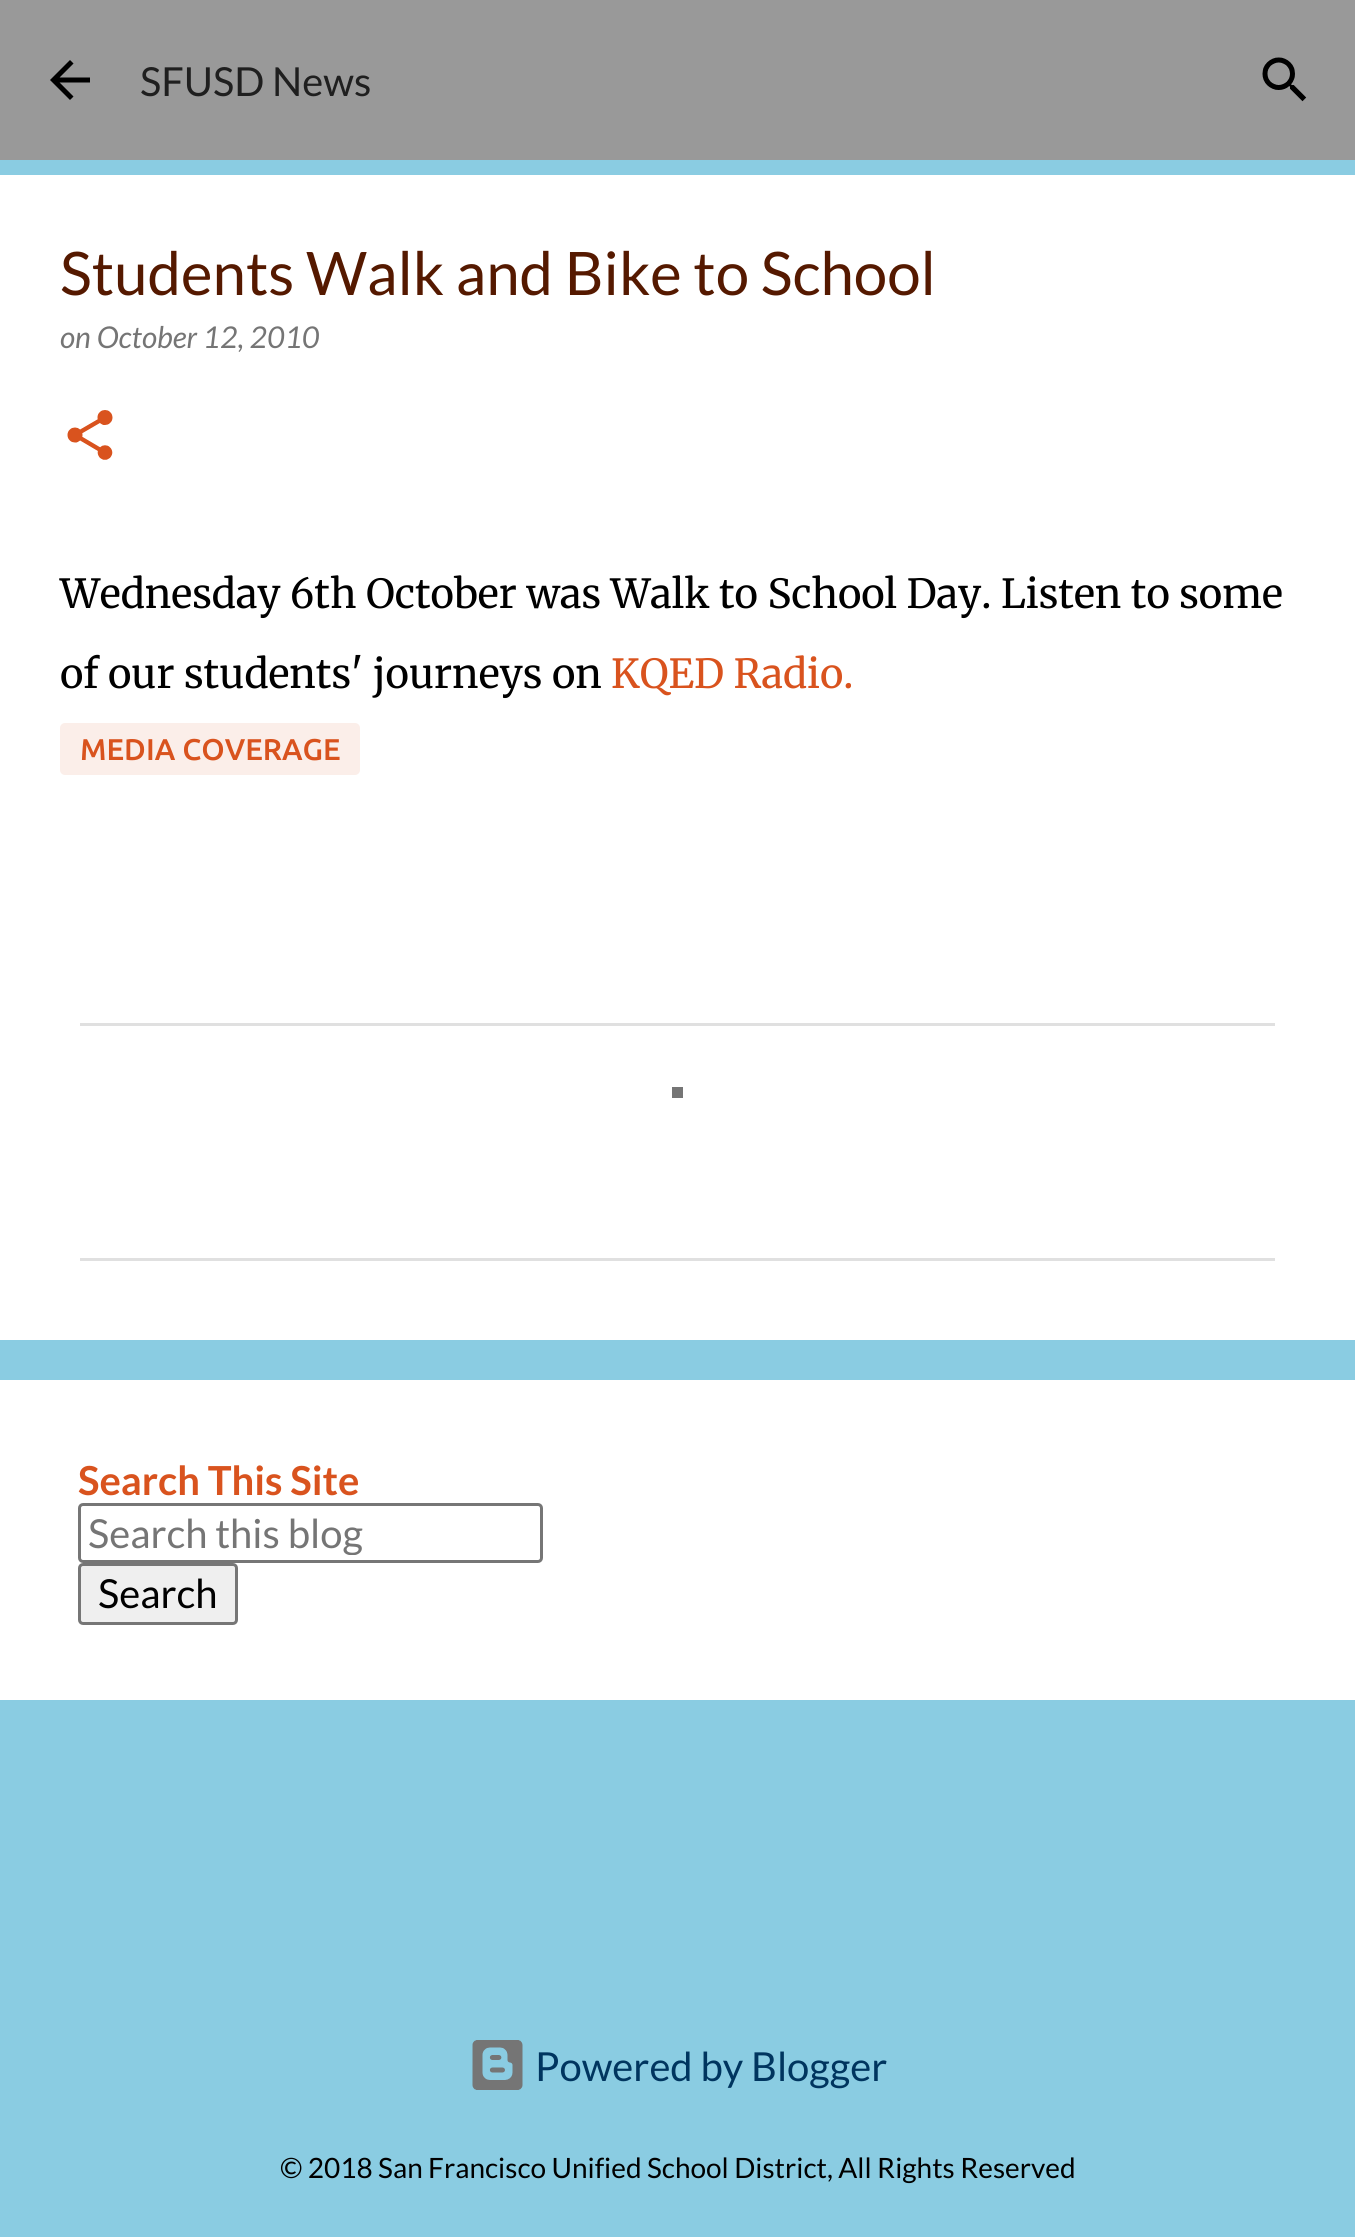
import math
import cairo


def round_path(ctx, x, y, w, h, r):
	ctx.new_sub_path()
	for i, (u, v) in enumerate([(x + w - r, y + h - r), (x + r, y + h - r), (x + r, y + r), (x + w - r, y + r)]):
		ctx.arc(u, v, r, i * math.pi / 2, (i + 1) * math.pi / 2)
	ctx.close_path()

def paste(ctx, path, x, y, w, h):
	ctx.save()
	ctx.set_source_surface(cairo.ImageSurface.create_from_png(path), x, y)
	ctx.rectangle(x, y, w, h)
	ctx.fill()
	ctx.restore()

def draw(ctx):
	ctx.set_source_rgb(0.541, 0.8, 0.886)
	ctx.paint()
	ctx.set_source_rgb(0.6, 0.6, 0.6)
	ctx.rectangle(0, 0, 1355, 160)
	ctx.fill()
	paste(ctx, 'media/1.png', 50, 60, 40, 40)
	ctx.select_font_face('Lato')
	ctx.set_font_size(40)
	ctx.set_source_rgb(0.122, 0.122, 0.122)
	ctx.move_to(140, 96)
	ctx.show_text('SFUSD News')
	paste(ctx, 'media/2.png', 1262, 57, 45, 45)
	ctx.set_source_rgb(1, 1, 1)
	ctx.rectangle(0, 175, 1355, 1165)
	ctx.fill()
	ctx.set_font_size(60)
	ctx.set_source_rgb(0.333, 0.098, 0)
	ctx.move_to(60, 295)
	ctx.show_text('Students Walk and Bike to School')
	ctx.select_font_face('Lato', cairo.FONT_SLANT_ITALIC)
	ctx.set_font_size(30)
	ctx.set_source_rgb(0.459, 0.459, 0.459)
	ctx.move_to(60, 348)
	ctx.show_text('on October 12, 2010')
	paste(ctx, 'media/3.png', 67, 410, 46, 50)
	ctx.select_font_face('Merriweather Light')
	ctx.set_font_size(40)
	ctx.set_source_rgb(0, 0, 0)
	ctx.move_to(60, 608)
	ctx.show_text('Wednesday 6th October was Walk to School Day. Listen to some')
	ctx.move_to(60, 688)
	ctx.show_text('of our students\' journeys on')
	ctx.set_source_rgb(0.851, 0.325, 0.118)
	ctx.move_to(611, 688)
	ctx.show_text('KQED Radio.')
	ctx.set_source_rgb(0.984, 0.933, 0.914)
	round_path(ctx, 60, 723, 300, 52, 5)
	ctx.fill()
	ctx.select_font_face('Ubuntu Medium')
	ctx.set_font_size(30)
	ctx.set_source_rgb(0.851, 0.325, 0.118)
	ctx.move_to(80, 760)
	ctx.show_text('MEDIA COVERAGE')
	ctx.set_source_rgb(0.878, 0.878, 0.878)
	ctx.rectangle(80, 1023, 1195, 3)
	ctx.rectangle(80, 1258, 1195, 3)
	ctx.fill()
	ctx.set_source_rgb(1, 1, 1)
	ctx.rectangle(0, 1380, 1355, 320)
	ctx.fill()
	ctx.select_font_face('Lato', cairo.FONT_SLANT_NORMAL, cairo.FONT_WEIGHT_BOLD)
	ctx.set_font_size(40)
	ctx.set_source_rgb(0.851, 0.325, 0.118)
	ctx.move_to(78, 1495)
	ctx.show_text('Search This Site')
	round_path(ctx, 79.5, 1504.5, 462, 57, 3.5)
	ctx.set_source_rgb(0.463, 0.463, 0.463)
	ctx.set_line_width(3)
	ctx.stroke()
	ctx.save()
	ctx.rectangle(88, 1508, 445, 47)
	ctx.clip()
	ctx.select_font_face('Lato')
	ctx.set_source_rgb(0.459, 0.459, 0.459)
	ctx.move_to(88, 1548)
	ctx.show_text('Search this blog')
	ctx.restore()
	ctx.set_source_rgb(0.937, 0.937, 0.937)
	round_path(ctx, 79.5, 1564.5, 157, 59, 3.5)
	ctx.fill_preserve()
	ctx.set_source_rgb(0.463, 0.463, 0.463)
	ctx.stroke()
	ctx.select_font_face('Lato')
	ctx.set_source_rgb(0, 0, 0)
	ctx.move_to(98, 1608)
	ctx.show_text('Search')
	paste(ctx, 'media/4.png', 472, 2040, 51, 50)
	ctx.set_source_rgb(0, 0.208, 0.373)
	ctx.move_to(535, 2081)
	ctx.show_text('Powered by Blogger')
	ctx.set_font_size(28)
	ctx.set_source_rgb(0, 0, 0)
	ctx.move_to(280, 2178)
	ctx.show_text('© 2018 San Francisco Unified School District, All Rights Reserved')
	ctx.set_source_rgb(0.459, 0.459, 0.459)
	ctx.rectangle(672, 1087, 11, 11)
	ctx.fill()


surface = cairo.ImageSurface(cairo.FORMAT_RGB24, 1355, 2237)
ctx = cairo.Context(surface)
options = cairo.FontOptions()
options.set_hint_metrics(cairo.HINT_METRICS_OFF)
options.set_hint_style(cairo.HINT_STYLE_NONE)
ctx.set_font_options(options)
ctx.set_miter_limit(4)
draw(ctx)
surface.write_to_png('image.png')
